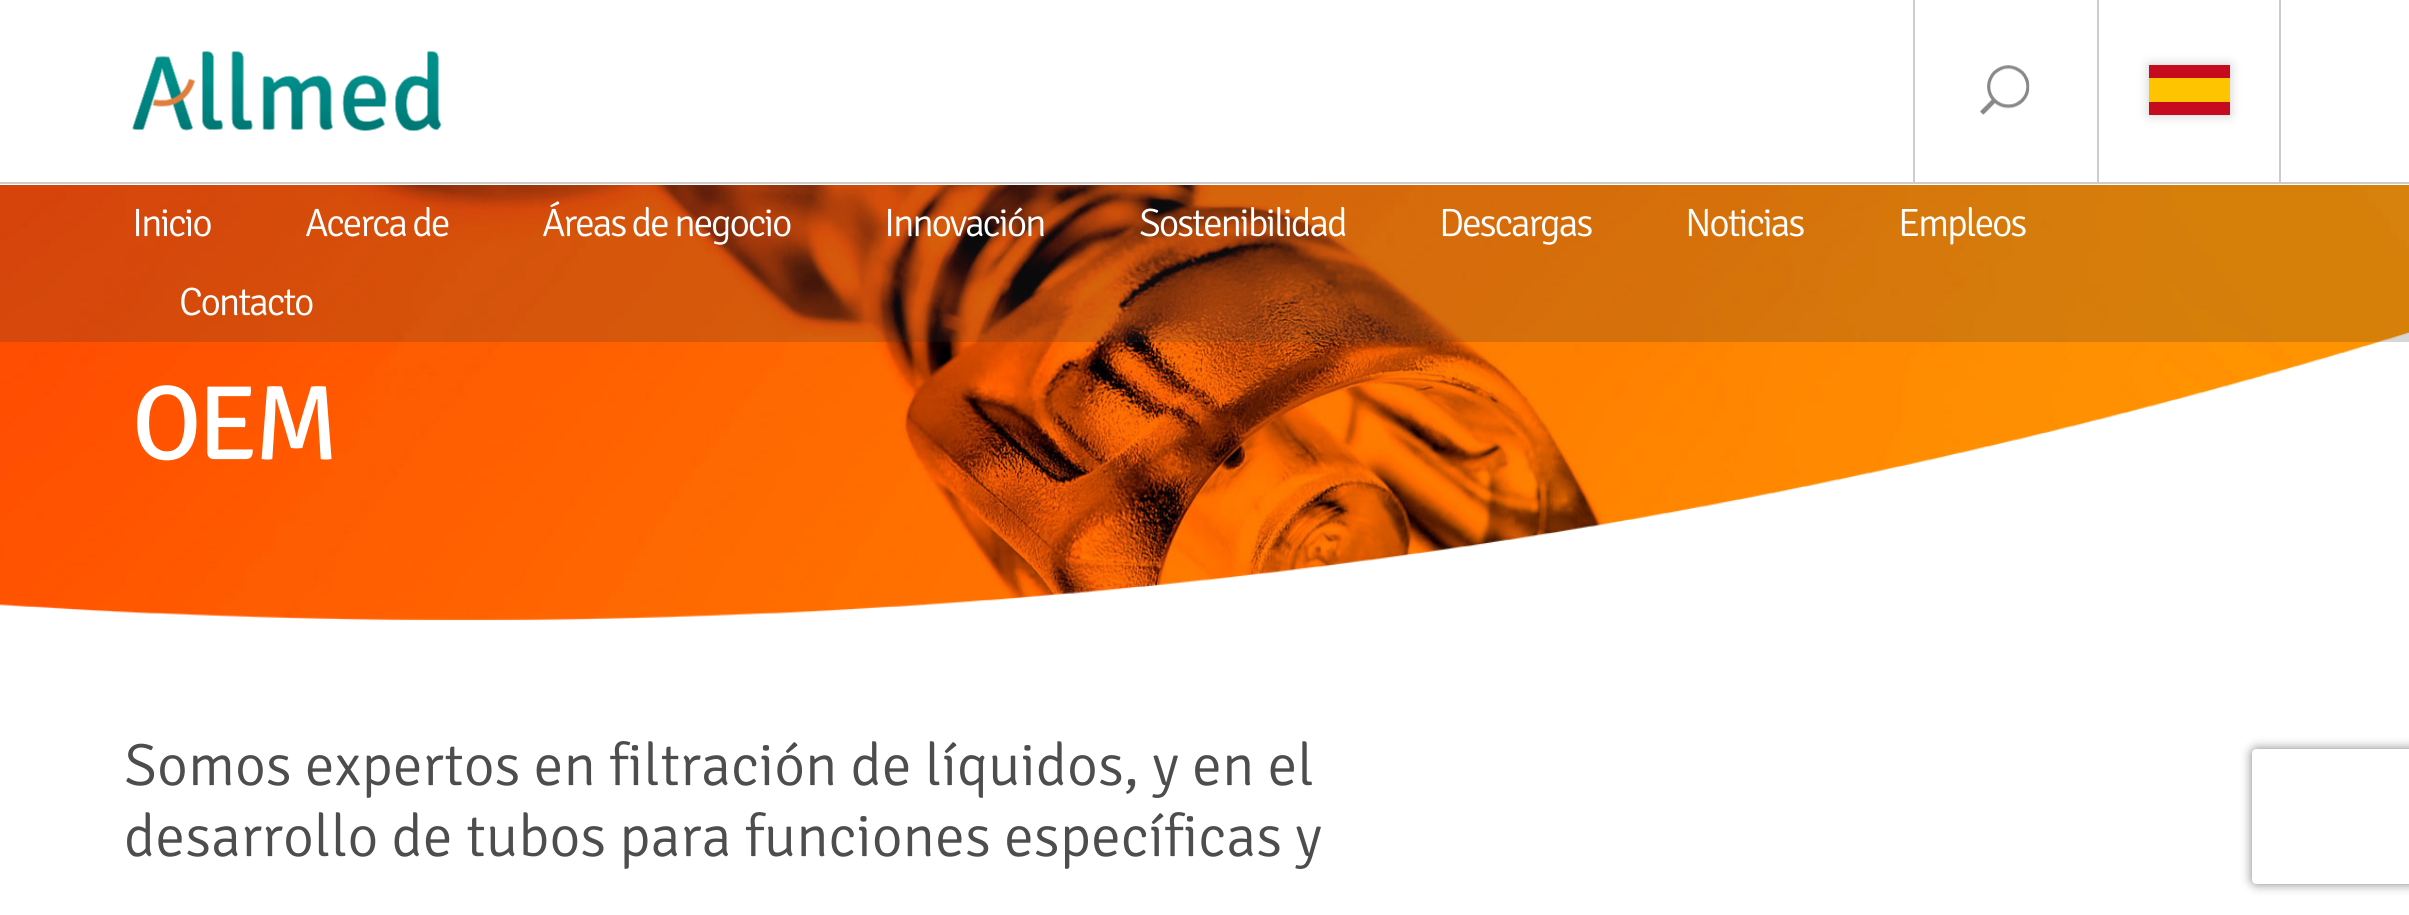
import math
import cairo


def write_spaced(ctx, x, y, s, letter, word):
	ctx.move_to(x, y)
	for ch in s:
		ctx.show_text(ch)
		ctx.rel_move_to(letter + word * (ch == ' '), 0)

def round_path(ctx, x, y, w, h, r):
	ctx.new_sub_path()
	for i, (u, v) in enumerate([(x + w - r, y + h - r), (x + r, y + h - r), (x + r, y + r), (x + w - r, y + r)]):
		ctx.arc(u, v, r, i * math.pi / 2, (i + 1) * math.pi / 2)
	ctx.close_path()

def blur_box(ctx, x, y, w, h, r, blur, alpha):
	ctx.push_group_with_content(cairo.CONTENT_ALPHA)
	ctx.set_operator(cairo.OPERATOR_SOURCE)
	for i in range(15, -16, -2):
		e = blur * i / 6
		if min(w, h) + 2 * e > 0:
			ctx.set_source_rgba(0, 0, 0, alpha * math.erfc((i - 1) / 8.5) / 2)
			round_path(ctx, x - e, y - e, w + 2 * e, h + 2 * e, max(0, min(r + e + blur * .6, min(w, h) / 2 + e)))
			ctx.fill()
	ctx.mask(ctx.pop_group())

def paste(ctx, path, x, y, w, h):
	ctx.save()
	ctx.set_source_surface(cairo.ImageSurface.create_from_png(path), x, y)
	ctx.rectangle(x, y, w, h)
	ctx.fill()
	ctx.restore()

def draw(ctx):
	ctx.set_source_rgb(1, 1, 1)
	ctx.paint()
	ctx.set_source_rgb(0.8, 0.8, 0.8)
	ctx.rectangle(0, 182, 2409, 2)
	ctx.fill()
	paste(ctx, 'media/1.png', 132, 51, 310, 80)
	ctx.rectangle(1913, 0, 2, 182)
	ctx.fill()
	paste(ctx, 'media/2.png', 1980, 65, 50, 50)
	ctx.rectangle(2279, 0, 2, 182)
	ctx.fill()
	ctx.rectangle(2097, 0, 2, 182)
	ctx.fill()
	ctx.set_source_rgb(0.8, 0.8, 0.8)
	blur_box(ctx, 2149, 65, 81, 50, 0, 5.5, 1)
	ctx.set_source_rgb(0.776, 0.043, 0.118)
	ctx.rectangle(2149, 65, 81, 50)
	ctx.fill()
	ctx.set_source_rgb(1, 0.769, 0)
	ctx.rectangle(2149, 78, 81, 24)
	ctx.fill()
	paste(ctx, 'media/3.png', 0, 185, 2409, 436)
	ctx.select_font_face('Signika')
	ctx.set_font_size(106)
	ctx.set_source_rgb(1, 1, 1)
	write_spaced(ctx, 132, 459, 'OEM', -4, 0)
	paste(ctx, 'media/4.png', 0, 331, 2409, 290)
	ctx.set_source_rgba(0.2, 0.2, 0.2, 0.2)
	ctx.rectangle(0, 185, 2409, 157)
	ctx.fill()
	ctx.select_font_face('Signika Light')
	ctx.set_font_size(39.5)
	ctx.set_source_rgb(1, 1, 1)
	for x, y, s in [
		(132, 236, 'Inicio'),
		(305, 236, 'Acerca de'),
		(542, 236, 'Áreas de negocio'),
		(884, 236, 'Innovación'),
		(1139, 236, 'Sostenibilidad'),
		(1439, 236, 'Descargas'),
		(1685, 236, 'Noticias'),
		(1898, 236, 'Empleos'),
		(179, 315, 'Contacto'),
	]:
		write_spaced(ctx, x, y, s, -2.25, 0)
	ctx.set_font_size(59.5)
	ctx.set_source_rgb(0.302, 0.302, 0.302)
	ctx.move_to(124, 785)
	ctx.show_text('Somos expertos en filtración de líquidos, y en el')
	ctx.move_to(124, 856)
	ctx.show_text('desarrollo de tubos para funciones específicas y')
	ctx.save()
	ctx.set_fill_rule(cairo.FILL_RULE_EVEN_ODD)
	ctx.new_path()
	ctx.move_to(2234, 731)
	ctx.line_to(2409, 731)
	ctx.line_to(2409, 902)
	ctx.line_to(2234, 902)
	ctx.close_path()
	ctx.move_to(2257, 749)
	ctx.line_to(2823, 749)
	ctx.curve_to(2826, 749, 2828, 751, 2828, 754)
	ctx.line_to(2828, 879)
	ctx.curve_to(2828, 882, 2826, 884, 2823, 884)
	ctx.line_to(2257, 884)
	ctx.curve_to(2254, 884, 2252, 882, 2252, 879)
	ctx.line_to(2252, 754)
	ctx.curve_to(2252, 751, 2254, 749, 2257, 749)
	ctx.close_path()
	ctx.clip()
	ctx.set_source_rgb(0.502, 0.502, 0.502)
	blur_box(ctx, 2252, 749, 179, 135, 5, 5.5, 1)
	ctx.restore()


surface = cairo.ImageSurface(cairo.FORMAT_RGB24, 2409, 915)
ctx = cairo.Context(surface)
options = cairo.FontOptions()
options.set_hint_metrics(cairo.HINT_METRICS_OFF)
options.set_hint_style(cairo.HINT_STYLE_NONE)
ctx.set_font_options(options)
ctx.set_miter_limit(4)
draw(ctx)
surface.write_to_png('image.png')
